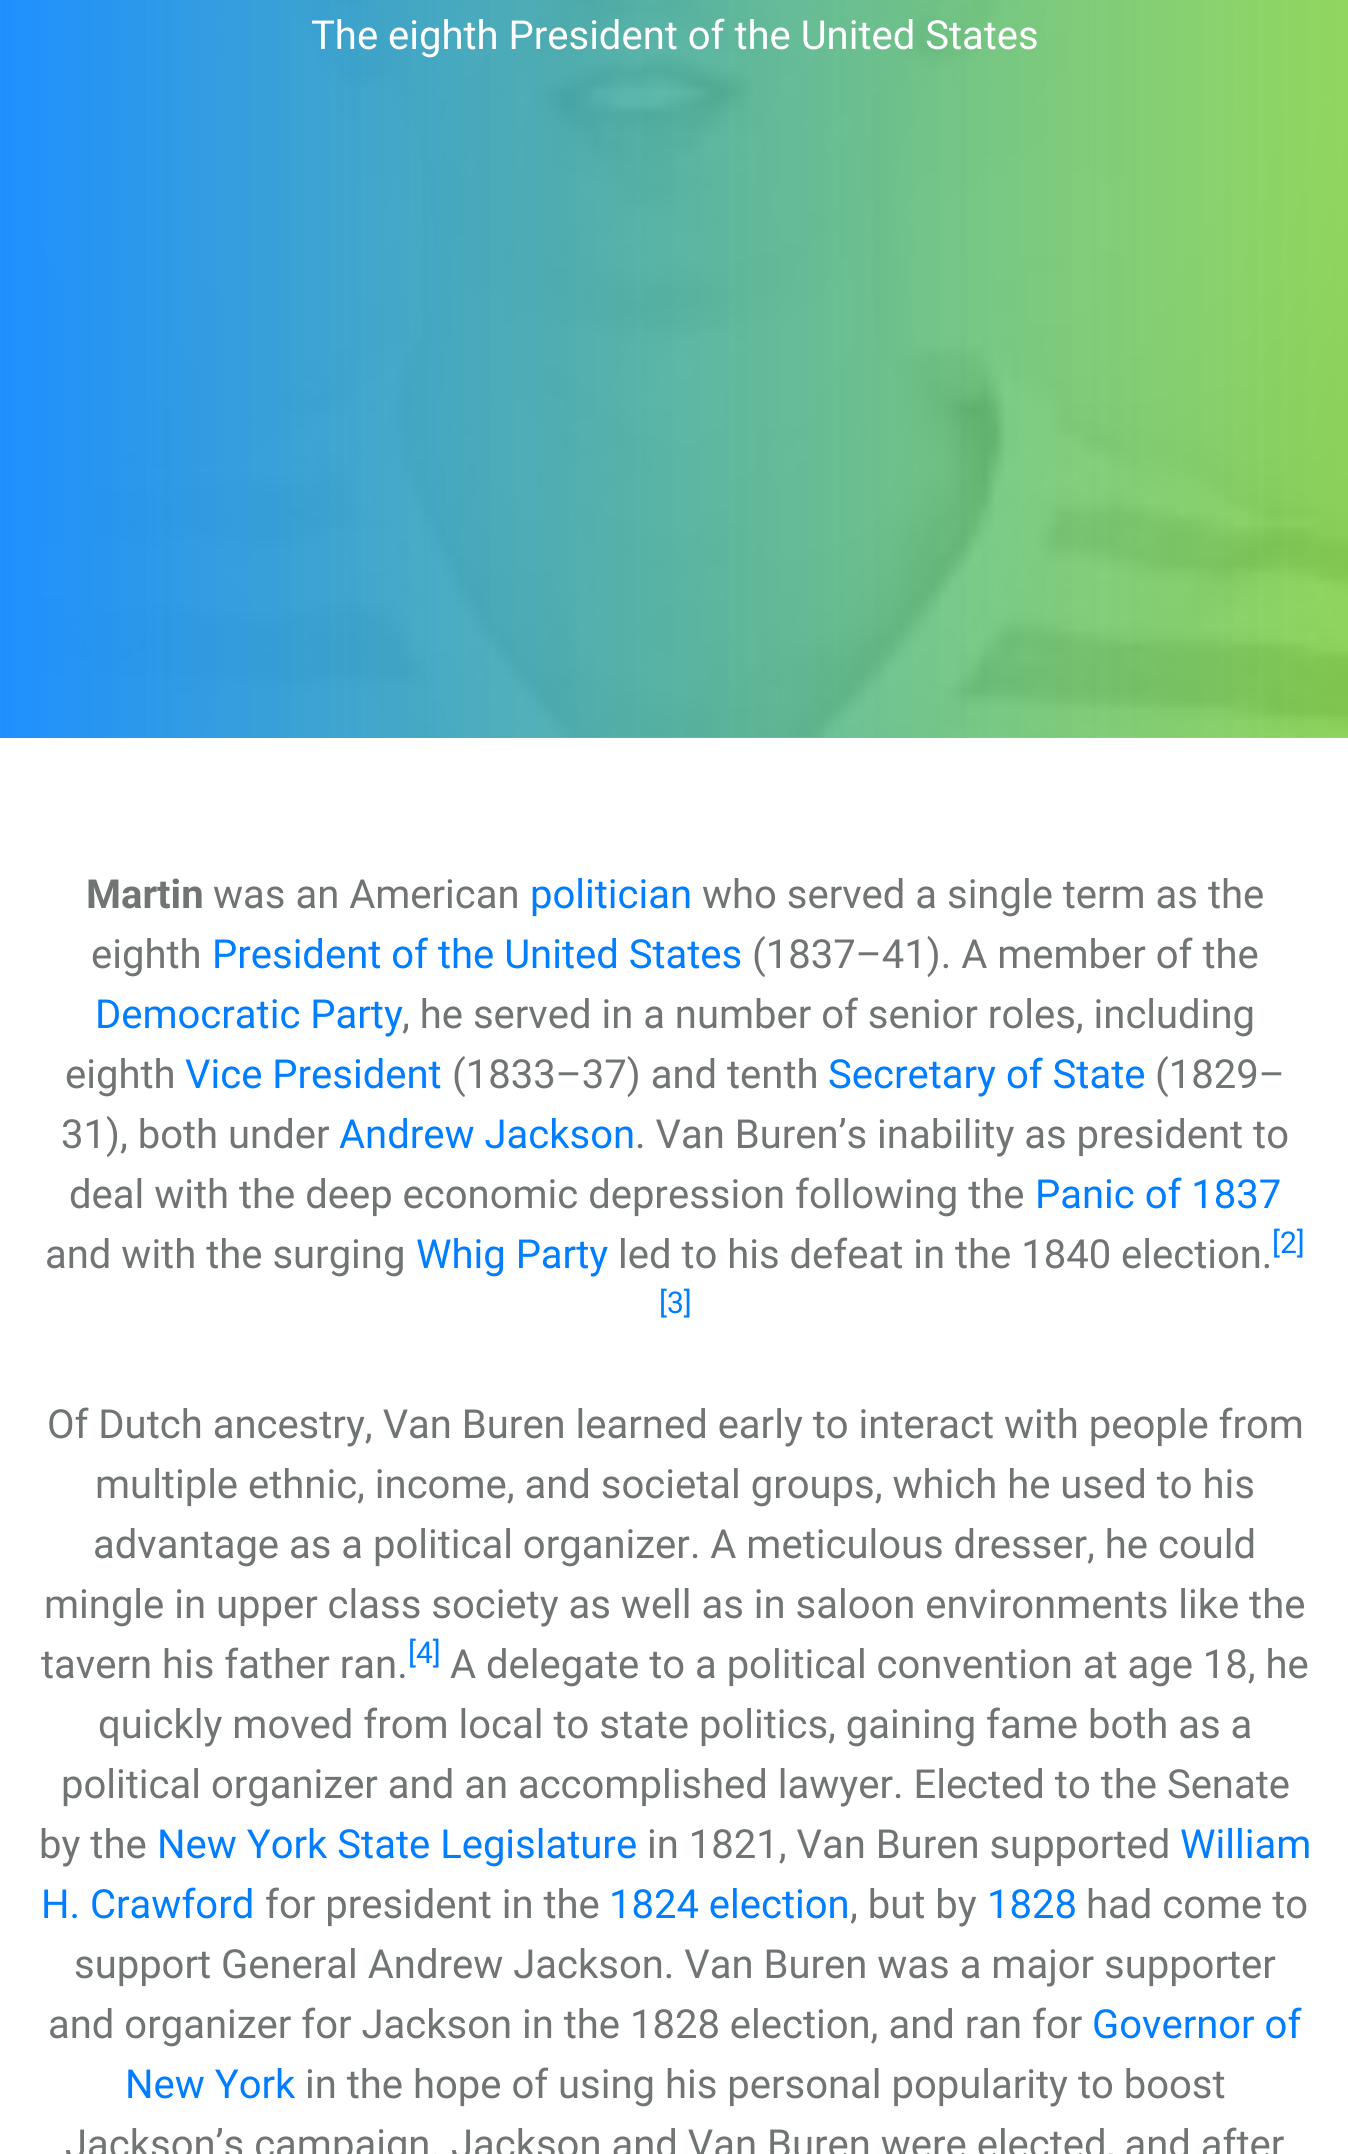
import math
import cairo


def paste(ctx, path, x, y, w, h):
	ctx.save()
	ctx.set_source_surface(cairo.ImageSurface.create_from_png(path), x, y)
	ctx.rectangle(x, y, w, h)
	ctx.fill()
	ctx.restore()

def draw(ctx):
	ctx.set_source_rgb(1, 1, 1)
	ctx.paint()
	paste(ctx, 'media/1.png', 40, 0, 1308, 738)
	gradient = cairo.LinearGradient(0, -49, 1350, -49)
	gradient.add_color_stop_rgba(0, 0.118, 0.565, 1, 1)
	gradient.add_color_stop_rgba(1, 0.506, 0.843, 0.259, 0.8)
	ctx.set_source(gradient)
	ctx.rectangle(0, 0, 1348, 738)
	ctx.fill()
	ctx.select_font_face('Roboto')
	ctx.set_font_size(40)
	ctx.set_source_rgb(1, 1, 1)
	ctx.move_to(311, 49)
	ctx.show_text('The eighth President of the United States')
	ctx.select_font_face('Roboto', cairo.FONT_SLANT_NORMAL, cairo.FONT_WEIGHT_BOLD)
	ctx.set_source_rgb(0.439, 0.455, 0.459)
	ctx.move_to(86, 908)
	ctx.show_text('Martin')
	ctx.select_font_face('Roboto')
	ctx.move_to(213, 908)
	ctx.show_text('was an American')
	ctx.set_source_rgb(0, 0.494, 1)
	ctx.move_to(530, 908)
	ctx.show_text('politician')
	ctx.set_source_rgb(0.439, 0.455, 0.459)
	ctx.move_to(702, 908)
	ctx.show_text('who served a single term as the')
	ctx.move_to(91, 968)
	ctx.show_text('eighth')
	ctx.set_source_rgb(0, 0.494, 1)
	ctx.move_to(212, 968)
	ctx.show_text('President of the United States')
	ctx.set_source_rgb(0.439, 0.455, 0.459)
	ctx.move_to(752, 968)
	ctx.show_text('(1837–41). A member of the')
	ctx.set_source_rgb(0, 0.494, 1)
	ctx.move_to(95, 1028)
	ctx.show_text('Democratic Party')
	ctx.set_source_rgb(0.439, 0.455, 0.459)
	ctx.move_to(402, 1028)
	ctx.show_text(', he served in a number of senior roles, including')
	ctx.move_to(65, 1088)
	ctx.show_text('eighth')
	ctx.set_source_rgb(0, 0.494, 1)
	ctx.move_to(185, 1088)
	ctx.show_text('Vice President')
	ctx.set_source_rgb(0.439, 0.455, 0.459)
	ctx.move_to(452, 1088)
	ctx.show_text('(1833–37) and tenth')
	ctx.set_source_rgb(0, 0.494, 1)
	ctx.move_to(828, 1088)
	ctx.show_text('Secretary of State')
	ctx.set_source_rgb(0.439, 0.455, 0.459)
	ctx.move_to(1155, 1088)
	ctx.show_text('(1829–')
	ctx.move_to(61, 1148)
	ctx.show_text('31), both under')
	ctx.set_source_rgb(0, 0.494, 1)
	ctx.move_to(339, 1148)
	ctx.show_text('Andrew Jackson')
	ctx.set_source_rgb(0.439, 0.455, 0.459)
	ctx.move_to(635, 1148)
	ctx.show_text('. Van Buren’s inability as president to')
	ctx.move_to(69, 1208)
	ctx.show_text('deal with the deep economic depression following the')
	ctx.set_source_rgb(0, 0.494, 1)
	ctx.move_to(1035, 1208)
	ctx.show_text('Panic of 1837')
	ctx.set_source_rgb(0.439, 0.455, 0.459)
	ctx.move_to(45, 1268)
	ctx.show_text('and with the surging')
	ctx.set_source_rgb(0, 0.494, 1)
	ctx.move_to(416, 1268)
	ctx.show_text('Whig Party')
	ctx.set_source_rgb(0.439, 0.455, 0.459)
	ctx.move_to(618, 1268)
	ctx.show_text('led to his defeat in the 1840 election.')
	ctx.set_font_size(30)
	ctx.set_source_rgb(0, 0.494, 1)
	ctx.move_to(1272, 1253)
	ctx.show_text('[2]')
	ctx.move_to(659, 1313)
	ctx.show_text('[3]')
	ctx.set_font_size(40)
	ctx.set_source_rgb(0.439, 0.455, 0.459)
	for x, y, s in [
		(47, 1438, 'Of Dutch ancestry, Van Buren learned early to interact with people from'),
		(95, 1498, 'multiple ethnic, income, and societal groups, which he used to his'),
		(93, 1558, 'advantage as a political organizer. A meticulous dresser, he could'),
		(44, 1618, 'mingle in upper class society as well as in saloon environments like the'),
		(41, 1678, 'tavern his father ran.'),
	]:
		ctx.move_to(x, y)
		ctx.show_text(s)
	ctx.set_font_size(30)
	ctx.set_source_rgb(0, 0.494, 1)
	ctx.move_to(408, 1663)
	ctx.show_text('[4]')
	ctx.set_font_size(40)
	ctx.set_source_rgb(0.439, 0.455, 0.459)
	for x, y, s in [
		(450, 1678, 'A delegate to a political convention at age 18, he'),
		(98, 1738, 'quickly moved from local to state politics, gaining fame both as a'),
		(61, 1798, 'political organizer and an accomplished lawyer. Elected to the Senate'),
		(39, 1858, 'by the'),
	]:
		ctx.move_to(x, y)
		ctx.show_text(s)
	ctx.set_source_rgb(0, 0.494, 1)
	ctx.move_to(157, 1858)
	ctx.show_text('New York State Legislature')
	ctx.set_source_rgb(0.439, 0.455, 0.459)
	ctx.move_to(647, 1858)
	ctx.show_text('in 1821, Van Buren supported')
	ctx.set_source_rgb(0, 0.494, 1)
	ctx.move_to(1180, 1858)
	ctx.show_text('William')
	ctx.move_to(41, 1918)
	ctx.show_text('H. Crawford')
	ctx.set_source_rgb(0.439, 0.455, 0.459)
	ctx.move_to(265, 1918)
	ctx.show_text('for president in the')
	ctx.set_source_rgb(0, 0.494, 1)
	ctx.move_to(609, 1918)
	ctx.show_text('1824 election')
	ctx.set_source_rgb(0.439, 0.455, 0.459)
	ctx.move_to(850, 1918)
	ctx.show_text(', but by')
	ctx.set_source_rgb(0, 0.494, 1)
	ctx.move_to(987, 1918)
	ctx.show_text('1828')
	ctx.set_source_rgb(0.439, 0.455, 0.459)
	for x, y, s in [
		(1086, 1918, 'had come to'),
		(74, 1978, 'support General Andrew Jackson. Van Buren was a major supporter'),
		(48, 2038, 'and organizer for Jackson in the 1828 election, and ran for'),
	]:
		ctx.move_to(x, y)
		ctx.show_text(s)
	ctx.set_source_rgb(0, 0.494, 1)
	ctx.move_to(1092, 2038)
	ctx.show_text('Governor of')
	ctx.move_to(125, 2098)
	ctx.show_text('New York')
	ctx.set_source_rgb(0.439, 0.455, 0.459)
	ctx.move_to(305, 2098)
	ctx.show_text('in the hope of using his personal popularity to boost')
	ctx.move_to(65, 2158)
	ctx.show_text('Jackson’s campaign. Jackson and Van Buren were elected, and after')


surface = cairo.ImageSurface(cairo.FORMAT_RGB24, 1348, 2154)
ctx = cairo.Context(surface)
options = cairo.FontOptions()
options.set_hint_metrics(cairo.HINT_METRICS_OFF)
options.set_hint_style(cairo.HINT_STYLE_NONE)
ctx.set_font_options(options)
ctx.set_miter_limit(4)
draw(ctx)
surface.write_to_png('image.png')
